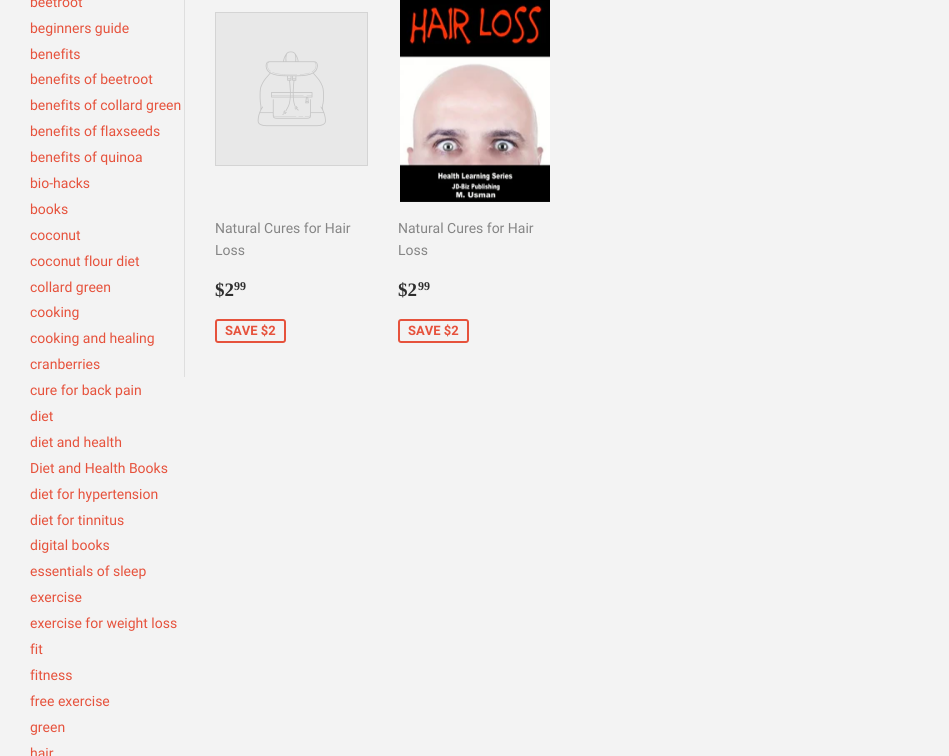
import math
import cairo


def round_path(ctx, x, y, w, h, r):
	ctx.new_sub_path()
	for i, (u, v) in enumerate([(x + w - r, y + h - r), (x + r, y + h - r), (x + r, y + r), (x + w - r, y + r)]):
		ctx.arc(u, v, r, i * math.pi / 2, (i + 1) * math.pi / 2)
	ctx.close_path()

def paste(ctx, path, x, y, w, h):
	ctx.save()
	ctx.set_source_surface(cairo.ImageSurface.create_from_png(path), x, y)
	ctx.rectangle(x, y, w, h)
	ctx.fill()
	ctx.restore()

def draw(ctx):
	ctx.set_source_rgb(0.953, 0.953, 0.953)
	ctx.paint()
	ctx.select_font_face('Roboto')
	ctx.set_font_size(14)
	ctx.set_source_rgb(0.902, 0.322, 0.235)
	for x, y, s in [
		(30, 7, 'beetroot'),
		(30, 33, 'beginners guide'),
		(30, 59, 'benefits'),
		(30, 84, 'benefits of beetroot'),
		(30, 110, 'benefits of collard green'),
		(30, 136, 'benefits of flaxseeds'),
		(30, 162, 'benefits of quinoa'),
		(30, 188, 'bio-hacks'),
		(30, 214, 'books'),
		(30, 240, 'coconut'),
		(30, 266, 'coconut flour diet'),
		(30, 292, 'collard green'),
		(30, 317, 'cooking'),
		(30, 343, 'cooking and healing'),
		(30, 369, 'cranberries'),
		(30, 395, 'cure for back pain'),
		(30, 421, 'diet'),
		(30, 447, 'diet and health'),
		(30, 473, 'Diet and Health Books'),
		(30, 499, 'diet for hypertension'),
		(30, 525, 'diet for tinnitus'),
		(30, 550, 'digital books'),
		(30, 576, 'essentials of sleep'),
		(30, 602, 'exercise'),
		(30, 628, 'exercise for weight loss'),
		(30, 654, 'fit'),
		(30, 680, 'fitness'),
		(30, 706, 'free exercise'),
		(30, 732, 'green'),
		(30, 758, 'hair'),
	]:
		ctx.move_to(x, y)
		ctx.show_text(s)
	ctx.set_source_rgb(0.871, 0.871, 0.871)
	ctx.rectangle(184, 0, 1, 377)
	ctx.fill()
	ctx.set_source_rgb(0.91, 0.91, 0.91)
	ctx.rectangle(215.5, 12.5, 152, 153)
	ctx.fill_preserve()
	ctx.set_source_rgb(0.831, 0.831, 0.831)
	ctx.set_line_width(1)
	ctx.stroke()
	paste(ctx, 'media/1.png', 257, 51, 69, 76)
	ctx.set_source_rgb(0.522, 0.522, 0.522)
	ctx.move_to(215, 233)
	ctx.show_text('Natural Cures for Hair')
	ctx.move_to(215, 255)
	ctx.show_text('Loss')
	ctx.select_font_face('Liberation Serif', cairo.FONT_SLANT_NORMAL, cairo.FONT_WEIGHT_BOLD)
	ctx.set_font_size(19)
	ctx.set_source_rgb(0.184, 0.184, 0.184)
	ctx.move_to(215, 296)
	ctx.show_text('$2')
	ctx.set_font_size(12)
	ctx.move_to(234, 290)
	ctx.show_text('99')
	round_path(ctx, 216, 320, 69, 22, 2)
	ctx.set_source_rgb(0.902, 0.322, 0.235)
	ctx.set_line_width(2)
	ctx.stroke()
	ctx.select_font_face('Roboto', cairo.FONT_SLANT_NORMAL, cairo.FONT_WEIGHT_BOLD)
	ctx.set_font_size(13)
	ctx.move_to(225, 335)
	ctx.show_text('SAVE $2')
	paste(ctx, 'media/2.png', 400, 0, 150, 202)
	ctx.select_font_face('Roboto')
	ctx.set_font_size(14)
	ctx.set_source_rgb(0.522, 0.522, 0.522)
	ctx.move_to(398, 233)
	ctx.show_text('Natural Cures for Hair')
	ctx.move_to(398, 255)
	ctx.show_text('Loss')
	ctx.select_font_face('Liberation Serif', cairo.FONT_SLANT_NORMAL, cairo.FONT_WEIGHT_BOLD)
	ctx.set_font_size(19)
	ctx.set_source_rgb(0.184, 0.184, 0.184)
	ctx.move_to(398, 296)
	ctx.show_text('$2')
	ctx.set_font_size(12)
	ctx.move_to(418, 290)
	ctx.show_text('99')
	round_path(ctx, 399, 320, 69, 22, 2)
	ctx.set_source_rgb(0.902, 0.322, 0.235)
	ctx.stroke()
	ctx.select_font_face('Roboto', cairo.FONT_SLANT_NORMAL, cairo.FONT_WEIGHT_BOLD)
	ctx.set_font_size(13)
	ctx.move_to(408, 335)
	ctx.show_text('SAVE $2')


surface = cairo.ImageSurface(cairo.FORMAT_RGB24, 949, 756)
ctx = cairo.Context(surface)
options = cairo.FontOptions()
options.set_hint_metrics(cairo.HINT_METRICS_OFF)
options.set_hint_style(cairo.HINT_STYLE_NONE)
ctx.set_font_options(options)
ctx.set_miter_limit(4)
draw(ctx)
surface.write_to_png('image.png')
